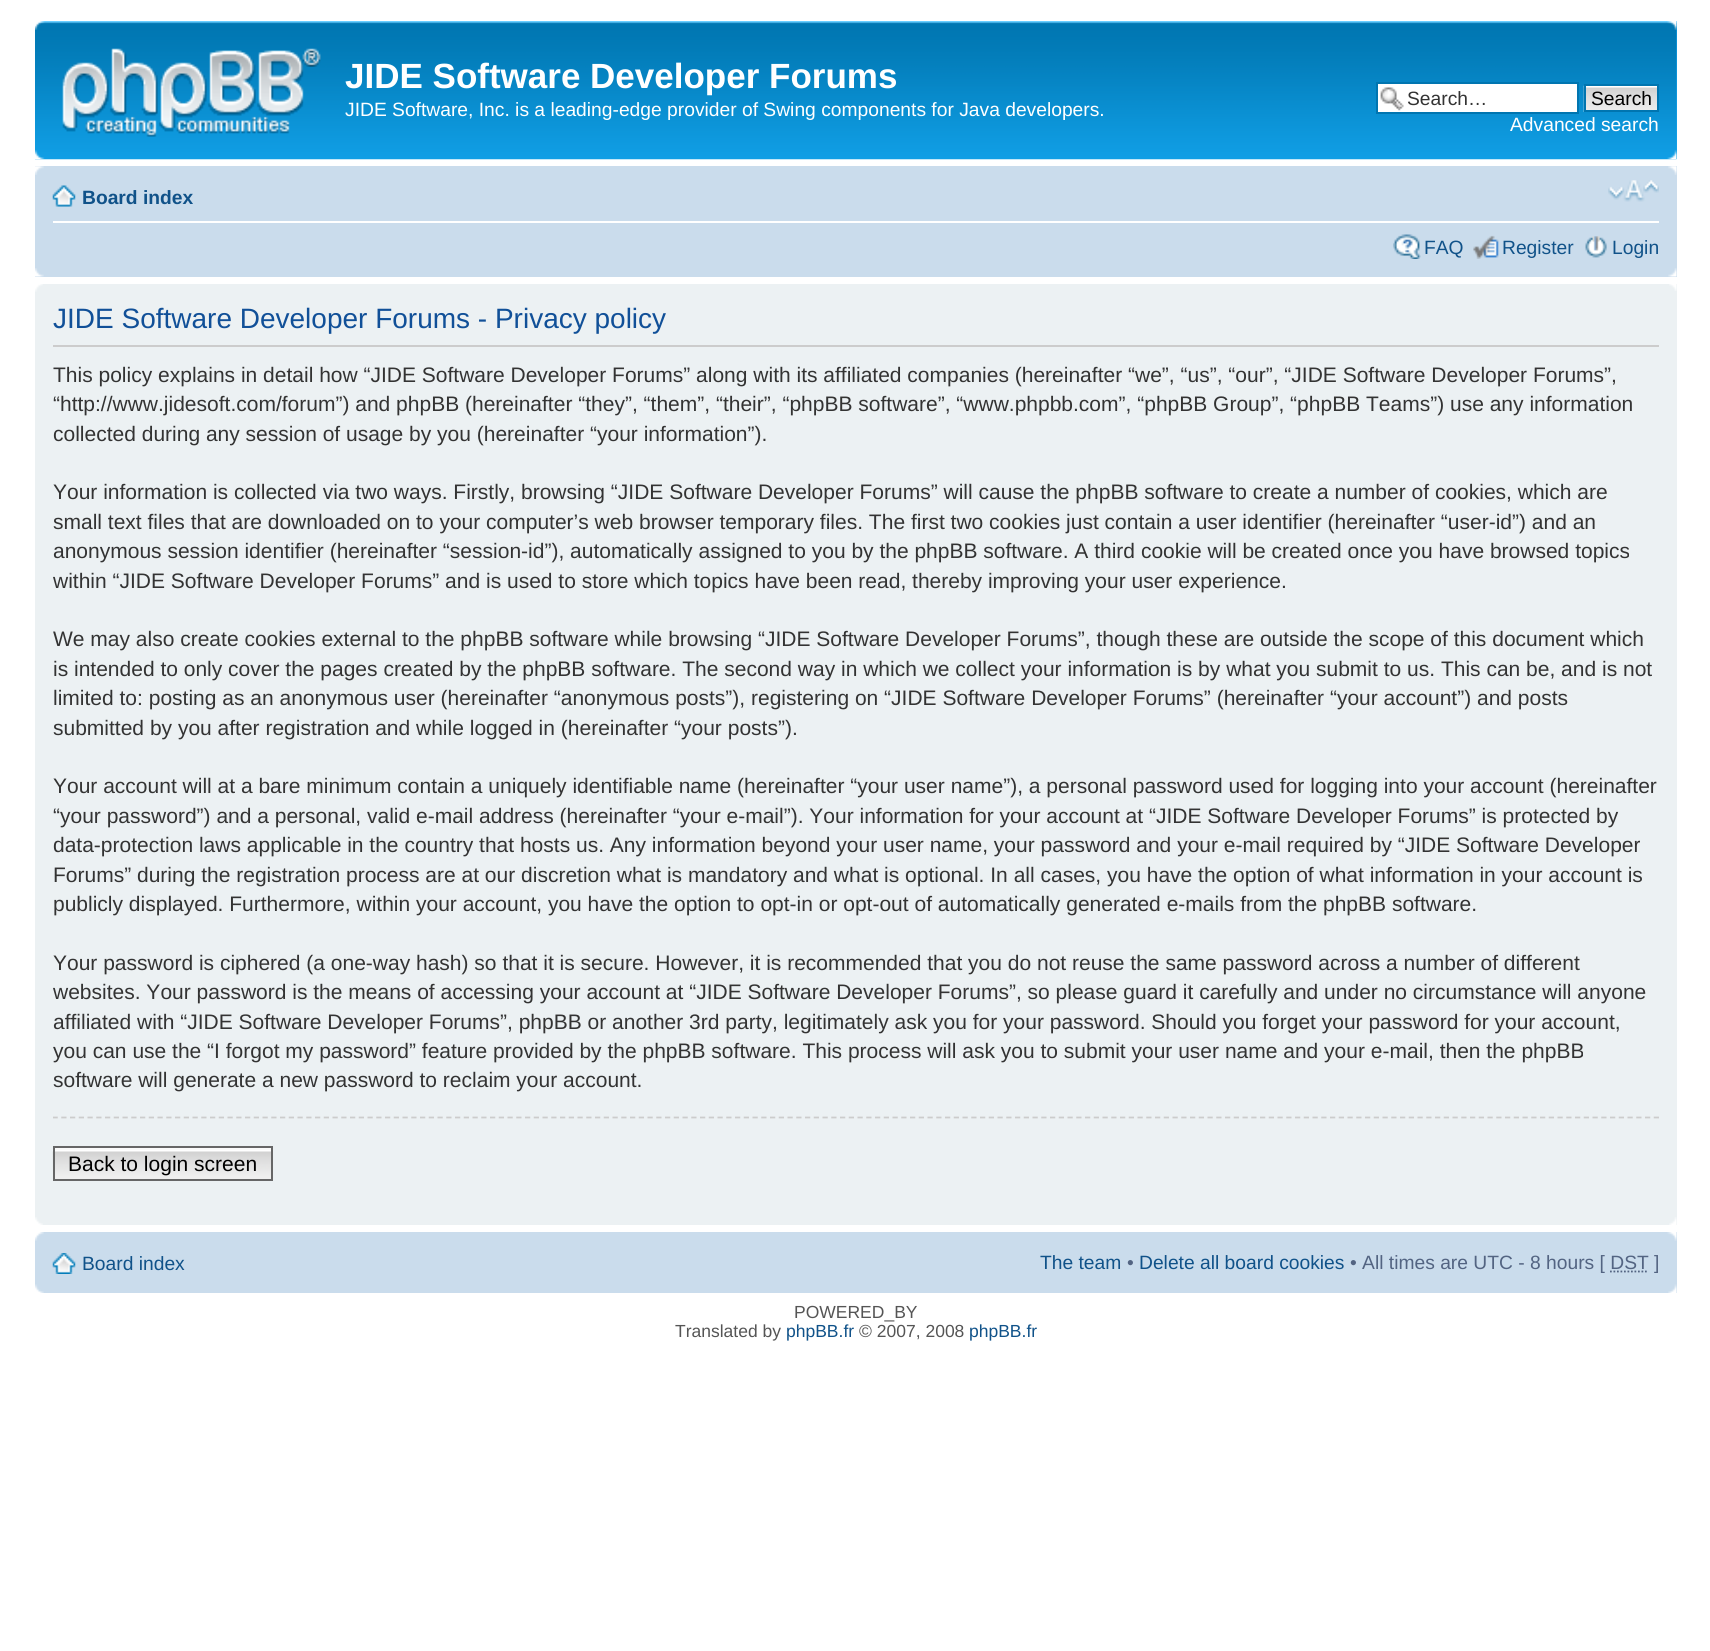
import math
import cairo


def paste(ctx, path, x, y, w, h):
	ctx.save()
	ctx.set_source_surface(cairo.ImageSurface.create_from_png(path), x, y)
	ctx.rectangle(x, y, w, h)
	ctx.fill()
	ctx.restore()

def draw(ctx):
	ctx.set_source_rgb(1, 1, 1)
	ctx.paint()
	ctx.set_source_rgb(0.071, 0.639, 0.922)
	ctx.rectangle(1676, 21, 1, 138)
	ctx.fill()
	paste(ctx, 'media/1.png', 35, 21, 1642, 139)
	paste(ctx, 'media/2.png', 35, 21, 10, 9)
	paste(ctx, 'media/3.png', 1667, 21, 10, 9)
	paste(ctx, 'media/4.png', 62, 48, 259, 89)
	ctx.select_font_face('Liberation Sans', cairo.FONT_SLANT_NORMAL, cairo.FONT_WEIGHT_BOLD)
	ctx.set_font_size(35)
	ctx.set_source_rgb(1, 1, 1)
	ctx.move_to(345, 88)
	ctx.show_text('JIDE Software Developer Forums')
	ctx.select_font_face('Liberation Sans')
	ctx.set_font_size(19.25)
	ctx.move_to(345, 116)
	ctx.show_text('JIDE Software, Inc. is a leading-edge provider of Swing components for Java developers.')
	ctx.rectangle(1378, 84, 199, 28)
	ctx.fill()
	paste(ctx, 'media/5.png', 1380, 87, 24, 24)
	ctx.rectangle(1377, 83, 201, 30)
	ctx.set_source_rgb(0, 0.459, 0.69)
	ctx.stroke()
	ctx.set_source_rgb(0.2, 0.2, 0.2)
	ctx.move_to(1407, 105)
	ctx.show_text('Search…')
	paste(ctx, 'media/6.png', 1583, 85, 74, 27)
	ctx.rectangle(1585, 85, 73, 26)
	ctx.set_source_rgb(0, 0.459, 0.69)
	ctx.stroke()
	ctx.set_source_rgb(0, 0, 0)
	ctx.move_to(1591, 105)
	ctx.show_text('Search')
	ctx.set_source_rgb(1, 1, 1)
	ctx.move_to(1510, 131)
	ctx.show_text('Advanced search')
	paste(ctx, 'media/7.png', 35, 150, 10, 10)
	paste(ctx, 'media/8.png', 1667, 150, 10, 10)
	ctx.set_source_rgb(0.792, 0.863, 0.922)
	ctx.rectangle(35, 166, 1642, 111)
	ctx.fill()
	paste(ctx, 'media/9.png', 35, 166, 9, 9)
	paste(ctx, 'media/10.png', 1668, 166, 9, 9)
	ctx.set_source_rgb(1, 1, 1)
	ctx.rectangle(53, 221, 1606, 2)
	ctx.fill()
	paste(ctx, 'media/11.png', 52, 185, 24, 22)
	ctx.select_font_face('Liberation Sans', cairo.FONT_SLANT_NORMAL, cairo.FONT_WEIGHT_BOLD)
	ctx.set_source_rgb(0.063, 0.322, 0.537)
	ctx.move_to(82, 204)
	ctx.show_text('Board index')
	paste(ctx, 'media/12.png', 1608, 180, 51, 22)
	paste(ctx, 'media/13.png', 1393, 234, 28, 25)
	ctx.select_font_face('Liberation Sans')
	ctx.move_to(1424, 254)
	ctx.show_text('FAQ')
	paste(ctx, 'media/14.png', 1473, 235, 26, 24)
	ctx.move_to(1502, 254)
	ctx.show_text('Register')
	paste(ctx, 'media/15.png', 1585, 236, 22, 22)
	ctx.move_to(1612, 254)
	ctx.show_text('Login')
	paste(ctx, 'media/16.png', 35, 268, 9, 9)
	paste(ctx, 'media/17.png', 1668, 268, 9, 9)
	ctx.set_source_rgb(0.925, 0.945, 0.953)
	ctx.rectangle(35, 284, 1642, 941)
	ctx.fill()
	paste(ctx, 'media/18.png', 35, 284, 8, 8)
	paste(ctx, 'media/19.png', 1669, 284, 8, 7)
	ctx.set_source_rgb(0.8, 0.8, 0.8)
	ctx.rectangle(53, 345, 1606, 2)
	ctx.fill()
	ctx.set_font_size(28)
	ctx.set_source_rgb(0.067, 0.314, 0.596)
	ctx.move_to(53, 328)
	ctx.show_text('JIDE Software Developer Forums - Privacy policy')
	ctx.set_font_size(21)
	ctx.set_source_rgb(0.2, 0.2, 0.2)
	for x, y, s in [
		(53, 382, 'This policy explains in detail how “JIDE Software Developer Forums” along with its affiliated companies (hereinafter “we”, “us”, “our”, “JIDE Software Developer Forums”,'),
		(53, 411, '“http://www.jidesoft.com/forum”) and phpBB (hereinafter “they”, “them”, “their”, “phpBB software”, “www.phpbb.com”, “phpBB Group”, “phpBB Teams”) use any information'),
		(53, 441, 'collected during any session of usage by you (hereinafter “your information”).'),
		(53, 499, 'Your information is collected via two ways. Firstly, browsing “JIDE Software Developer Forums” will cause the phpBB software to create a number of cookies, which are'),
		(53, 529, 'small text files that are downloaded on to your computer’s web browser temporary files. The first two cookies just contain a user identifier (hereinafter “user-id”) and an'),
		(53, 558, 'anonymous session identifier (hereinafter “session-id”), automatically assigned to you by the phpBB software. A third cookie will be created once you have browsed topics'),
		(53, 588, 'within “JIDE Software Developer Forums” and is used to store which topics have been read, thereby improving your user experience.'),
		(53, 646, 'We may also create cookies external to the phpBB software while browsing “JIDE Software Developer Forums”, though these are outside the scope of this document which'),
		(53, 676, 'is intended to only cover the pages created by the phpBB software. The second way in which we collect your information is by what you submit to us. This can be, and is not'),
		(53, 705, 'limited to: posting as an anonymous user (hereinafter “anonymous posts”), registering on “JIDE Software Developer Forums” (hereinafter “your account”) and posts'),
		(53, 735, 'submitted by you after registration and while logged in (hereinafter “your posts”).'),
		(53, 793, 'Your account will at a bare minimum contain a uniquely identifiable name (hereinafter “your user name”), a personal password used for logging into your account (hereinafter'),
		(53, 823, '“your password”) and a personal, valid e-mail address (hereinafter “your e-mail”). Your information for your account at “JIDE Software Developer Forums” is protected by'),
		(53, 852, 'data-protection laws applicable in the country that hosts us. Any information beyond your user name, your password and your e-mail required by “JIDE Software Developer'),
		(53, 882, 'Forums” during the registration process are at our discretion what is mandatory and what is optional. In all cases, you have the option of what information in your account is'),
		(53, 911, 'publicly displayed. Furthermore, within your account, you have the option to opt-in or opt-out of automatically generated e-mails from the phpBB software.'),
		(53, 970, 'Your password is ciphered (a one-way hash) so that it is secure. However, it is recommended that you do not reuse the same password across a number of different'),
		(53, 999, 'websites. Your password is the means of accessing your account at “JIDE Software Developer Forums”, so please guard it carefully and under no circumstance will anyone'),
		(53, 1029, 'affiliated with “JIDE Software Developer Forums”, phpBB or another 3rd party, legitimately ask you for your password. Should you forget your password for your account,'),
		(53, 1058, 'you can use the “I forgot my password” feature provided by the phpBB software. This process will ask you to submit your user name and your e-mail, then the phpBB'),
		(53, 1087, 'software will generate a new password to reclaim your account.'),
	]:
		ctx.move_to(x, y)
		ctx.show_text(s)
	ctx.save()
	ctx.rectangle(53, 292, 1606, 924)
	ctx.clip()
	ctx.new_path()
	ctx.move_to(52.5, 1117.5)
	ctx.line_to(1659, 1117.5)
	ctx.set_source_rgb(0.8, 0.8, 0.8)
	ctx.set_line_width(1.8)
	ctx.set_dash([5.25, 3.5])
	ctx.stroke()
	ctx.restore()
	paste(ctx, 'media/20.png', 52, 1150, 219, 31)
	ctx.set_source_rgb(0.98, 0.98, 0.98)
	ctx.rectangle(55, 1148, 216, 2)
	ctx.fill()
	ctx.rectangle(54, 1147, 218, 33)
	ctx.set_source_rgb(0.4, 0.4, 0.4)
	ctx.stroke()
	ctx.set_source_rgb(0, 0, 0)
	ctx.move_to(68, 1171)
	ctx.show_text('Back to login screen')
	paste(ctx, 'media/21.png', 35, 1217, 8, 8)
	paste(ctx, 'media/22.png', 1669, 1217, 8, 8)
	ctx.set_source_rgb(0.792, 0.863, 0.922)
	ctx.rectangle(35, 1232, 1642, 61)
	ctx.fill()
	paste(ctx, 'media/23.png', 35, 1232, 9, 9)
	paste(ctx, 'media/24.png', 1667, 1232, 10, 9)
	paste(ctx, 'media/25.png', 52, 1253, 24, 21)
	ctx.set_font_size(19.25)
	ctx.set_source_rgb(0.063, 0.322, 0.537)
	ctx.move_to(82, 1270)
	ctx.show_text('Board index')
	ctx.move_to(1040, 1269)
	ctx.show_text('The team')
	ctx.set_source_rgb(0.325, 0.392, 0.51)
	ctx.move_to(1127, 1269)
	ctx.show_text('•')
	ctx.set_source_rgb(0.063, 0.322, 0.537)
	ctx.move_to(1139, 1269)
	ctx.show_text('Delete all board cookies')
	ctx.set_source_rgb(0.325, 0.392, 0.51)
	ctx.move_to(1350, 1269)
	ctx.show_text('• All times are UTC - 8 hours [ DST ]')
	ctx.new_path()
	ctx.move_to(1610, 1271.5)
	ctx.line_to(1648.5, 1271.5)
	ctx.set_line_width(1.8)
	ctx.set_dash([1.75, 1.75])
	ctx.stroke()
	paste(ctx, 'media/26.png', 35, 1284, 9, 9)
	paste(ctx, 'media/27.png', 1668, 1284, 9, 9)
	ctx.set_font_size(17.5)
	ctx.set_source_rgb(0.333, 0.333, 0.333)
	ctx.move_to(794, 1318)
	ctx.show_text('POWERED_BY')
	ctx.move_to(675, 1337)
	ctx.show_text('Translated by')
	ctx.set_source_rgb(0.063, 0.322, 0.537)
	ctx.move_to(786, 1337)
	ctx.show_text('phpBB.fr')
	ctx.set_source_rgb(0.333, 0.333, 0.333)
	ctx.move_to(859, 1337)
	ctx.show_text('© 2007, 2008')
	ctx.set_source_rgb(0.063, 0.322, 0.537)
	ctx.move_to(969, 1337)
	ctx.show_text('phpBB.fr')


surface = cairo.ImageSurface(cairo.FORMAT_RGB24, 1710, 1651)
ctx = cairo.Context(surface)
options = cairo.FontOptions()
options.set_hint_metrics(cairo.HINT_METRICS_OFF)
options.set_hint_style(cairo.HINT_STYLE_NONE)
ctx.set_font_options(options)
ctx.set_miter_limit(4)
draw(ctx)
surface.write_to_png('image.png')
